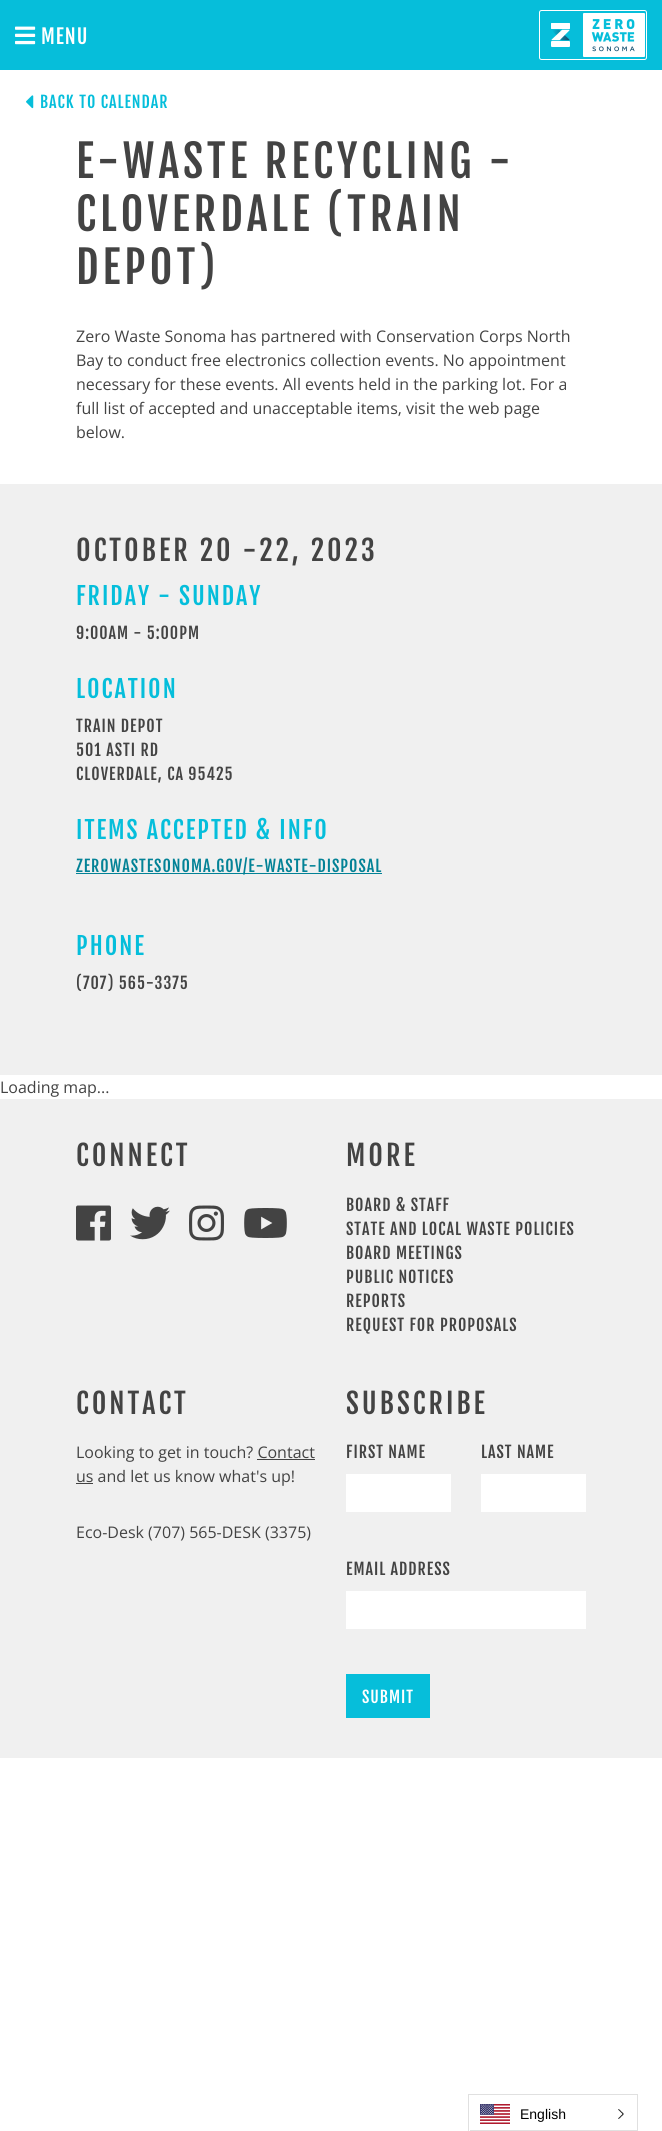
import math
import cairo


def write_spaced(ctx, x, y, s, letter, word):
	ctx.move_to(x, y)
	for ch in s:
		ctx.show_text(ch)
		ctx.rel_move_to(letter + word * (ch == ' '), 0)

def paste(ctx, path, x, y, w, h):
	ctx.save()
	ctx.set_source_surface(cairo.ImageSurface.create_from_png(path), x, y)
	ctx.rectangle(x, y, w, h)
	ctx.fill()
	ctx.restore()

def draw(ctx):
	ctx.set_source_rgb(1, 1, 1)
	ctx.paint()
	ctx.set_source_rgb(0.024, 0.745, 0.855)
	ctx.rectangle(0, 0, 662, 70)
	ctx.fill()
	paste(ctx, 'media/1.png', 15, 26, 21, 19)
	ctx.select_font_face('Fjalla One')
	ctx.set_font_size(20)
	ctx.set_source_rgb(1, 1, 1)
	write_spaced(ctx, 41, 44, 'MENU', 1, 0)
	paste(ctx, 'media/2.png', 539, 10, 108, 50)
	paste(ctx, 'media/3.png', 26, 95, 8, 14)
	ctx.set_font_size(16)
	ctx.set_source_rgb(0.02, 0.745, 0.859)
	write_spaced(ctx, 40, 108, 'BACK TO CALENDAR', 1, 0)
	ctx.set_font_size(44)
	ctx.set_source_rgb(0.263, 0.263, 0.263)
	for x, y, s in [
		(76, 178, 'E-WASTE RECYCLING -'),
		(76, 231, 'CLOVERDALE (TRAIN'),
		(76, 284, 'DEPOT)'),
	]:
		write_spaced(ctx, x, y, s, 4, 0)
	ctx.select_font_face('Open Sans')
	ctx.set_font_size(16)
	for x, y, s in [
		(76, 342, 'Zero Waste Sonoma has partnered with Conservation Corps North'),
		(76, 366, 'Bay to conduct free electronics collection events. No appointment'),
		(76, 390, 'necessary for these events. All events held in the parking lot. For a'),
		(76, 414, 'full list of accepted and unacceptable items, visit the web page'),
		(76, 438, 'below.'),
	]:
		ctx.move_to(x, y)
		ctx.show_text(s)
	ctx.set_source_rgb(0.941, 0.941, 0.941)
	ctx.rectangle(0, 484, 662, 591)
	ctx.fill()
	ctx.select_font_face('Fjalla One')
	ctx.set_font_size(28)
	ctx.set_source_rgb(0.263, 0.263, 0.263)
	write_spaced(ctx, 76, 561, 'OCTOBER 20 -22, 2023', 3, 0)
	ctx.set_font_size(24)
	ctx.set_source_rgb(0.02, 0.745, 0.859)
	write_spaced(ctx, 76, 605, 'FRIDAY - SUNDAY', 2, 0)
	ctx.set_font_size(16)
	ctx.set_source_rgb(0.263, 0.263, 0.263)
	write_spaced(ctx, 76, 639, '9:00AM - 5:00PM', 1, 0)
	ctx.set_font_size(24)
	ctx.set_source_rgb(0.02, 0.745, 0.859)
	write_spaced(ctx, 76, 698, 'LOCATION', 2, 0)
	ctx.set_font_size(16)
	ctx.set_source_rgb(0.263, 0.263, 0.263)
	for x, y, s in [
		(76, 732, 'TRAIN DEPOT'),
		(76, 756, '501 ASTI RD'),
		(76, 780, 'CLOVERDALE, CA 95425'),
	]:
		write_spaced(ctx, x, y, s, 1, 0)
	ctx.set_font_size(24)
	ctx.set_source_rgb(0.02, 0.745, 0.859)
	write_spaced(ctx, 76, 839, 'ITEMS ACCEPTED & INFO', 2, 0)
	ctx.set_source_rgb(0.012, 0.51, 0.588)
	ctx.rectangle(76, 873, 306, 1)
	ctx.fill()
	ctx.set_font_size(16)
	write_spaced(ctx, 76, 872, 'ZEROWASTESONOMA.GOV/E-WASTE-DISPOSAL', 1, 0)
	ctx.set_font_size(24)
	ctx.set_source_rgb(0.02, 0.745, 0.859)
	write_spaced(ctx, 76, 955, 'PHONE', 2, 0)
	ctx.set_font_size(16)
	ctx.set_source_rgb(0.263, 0.263, 0.263)
	write_spaced(ctx, 76, 989, '(707) 565-3375', 1, 0)
	ctx.select_font_face('Open Sans')
	ctx.move_to(0, 1093)
	ctx.show_text('Loading map...')
	ctx.set_source_rgb(0.941, 0.941, 0.941)
	ctx.rectangle(0, 1099, 662, 659)
	ctx.fill()
	ctx.select_font_face('Fjalla One')
	ctx.set_font_size(28)
	ctx.set_source_rgb(0.263, 0.263, 0.263)
	write_spaced(ctx, 76, 1166, 'CONNECT', 3, 0)
	paste(ctx, 'media/4.png', 76, 1205, 35, 36)
	paste(ctx, 'media/5.png', 130, 1206, 40, 34)
	paste(ctx, 'media/6.png', 189, 1205, 35, 36)
	paste(ctx, 'media/7.png', 244, 1208, 43, 30)
	write_spaced(ctx, 346, 1166, 'MORE', 3, 0)
	ctx.set_font_size(16)
	for x, y, s in [
		(346, 1211, 'BOARD & STAFF'),
		(346, 1235, 'STATE AND LOCAL WASTE POLICIES'),
		(346, 1259, 'BOARD MEETINGS'),
		(346, 1283, 'PUBLIC NOTICES'),
		(346, 1307, 'REPORTS'),
		(346, 1331, 'REQUEST FOR PROPOSALS'),
	]:
		write_spaced(ctx, x, y, s, 1, 0)
	ctx.set_font_size(28)
	write_spaced(ctx, 76, 1414, 'CONTACT', 3, 0)
	ctx.select_font_face('Open Sans')
	ctx.set_font_size(16)
	ctx.move_to(76, 1458)
	ctx.show_text('Looking to get in touch? Contact')
	ctx.rectangle(76, 1483, 17, 1)
	ctx.fill()
	ctx.move_to(76, 1482)
	ctx.show_text('us and let us know what\'s up!')
	ctx.rectangle(257, 1459, 58, 1)
	ctx.fill()
	ctx.move_to(76, 1538)
	ctx.show_text('Eco-Desk (707) 565-DESK (3375)')
	ctx.select_font_face('Fjalla One')
	ctx.set_font_size(28)
	write_spaced(ctx, 346, 1414, 'SUBSCRIBE', 3, 0)
	ctx.set_font_size(16)
	write_spaced(ctx, 346, 1458, 'FIRST NAME', 1, 0)
	ctx.set_source_rgb(1, 1, 1)
	ctx.rectangle(346, 1474, 105, 38)
	ctx.fill()
	ctx.set_source_rgb(0.263, 0.263, 0.263)
	write_spaced(ctx, 481, 1458, 'LAST NAME', 1, 0)
	ctx.set_source_rgb(1, 1, 1)
	ctx.rectangle(481, 1474, 105, 38)
	ctx.fill()
	ctx.set_source_rgb(0.263, 0.263, 0.263)
	write_spaced(ctx, 346, 1575, 'EMAIL ADDRESS', 1, 0)
	ctx.set_source_rgb(1, 1, 1)
	ctx.rectangle(346, 1591, 240, 38)
	ctx.fill()
	ctx.set_source_rgb(0.024, 0.745, 0.855)
	ctx.rectangle(346, 1674, 84, 44)
	ctx.fill()
	ctx.set_source_rgb(1, 1, 1)
	write_spaced(ctx, 362, 1703, 'SUBMIT', 1, 0)
	ctx.set_source_rgb(0.878, 0.878, 0.878)
	ctx.rectangle(468, 2094, 170, 1)
	ctx.rectangle(637, 2094, 1, 37)
	ctx.rectangle(468, 2094, 1, 37)
	ctx.rectangle(469, 2130, 168, 1)
	ctx.fill()
	ctx.set_source_rgb(1, 1, 1)
	ctx.rectangle(469, 2130, 1, 1)
	ctx.fill()
	paste(ctx, 'media/8.png', 480, 2104, 30, 20)
	ctx.select_font_face('Liberation Sans')
	ctx.set_font_size(14)
	ctx.set_source_rgb(0, 0, 0)
	ctx.move_to(520, 2119)
	ctx.show_text('English')
	paste(ctx, 'media/9.png', 618, 2109, 6, 10)


surface = cairo.ImageSurface(cairo.FORMAT_RGB24, 662, 2131)
ctx = cairo.Context(surface)
options = cairo.FontOptions()
options.set_hint_metrics(cairo.HINT_METRICS_OFF)
options.set_hint_style(cairo.HINT_STYLE_NONE)
ctx.set_font_options(options)
ctx.set_miter_limit(4)
draw(ctx)
surface.write_to_png('image.png')
